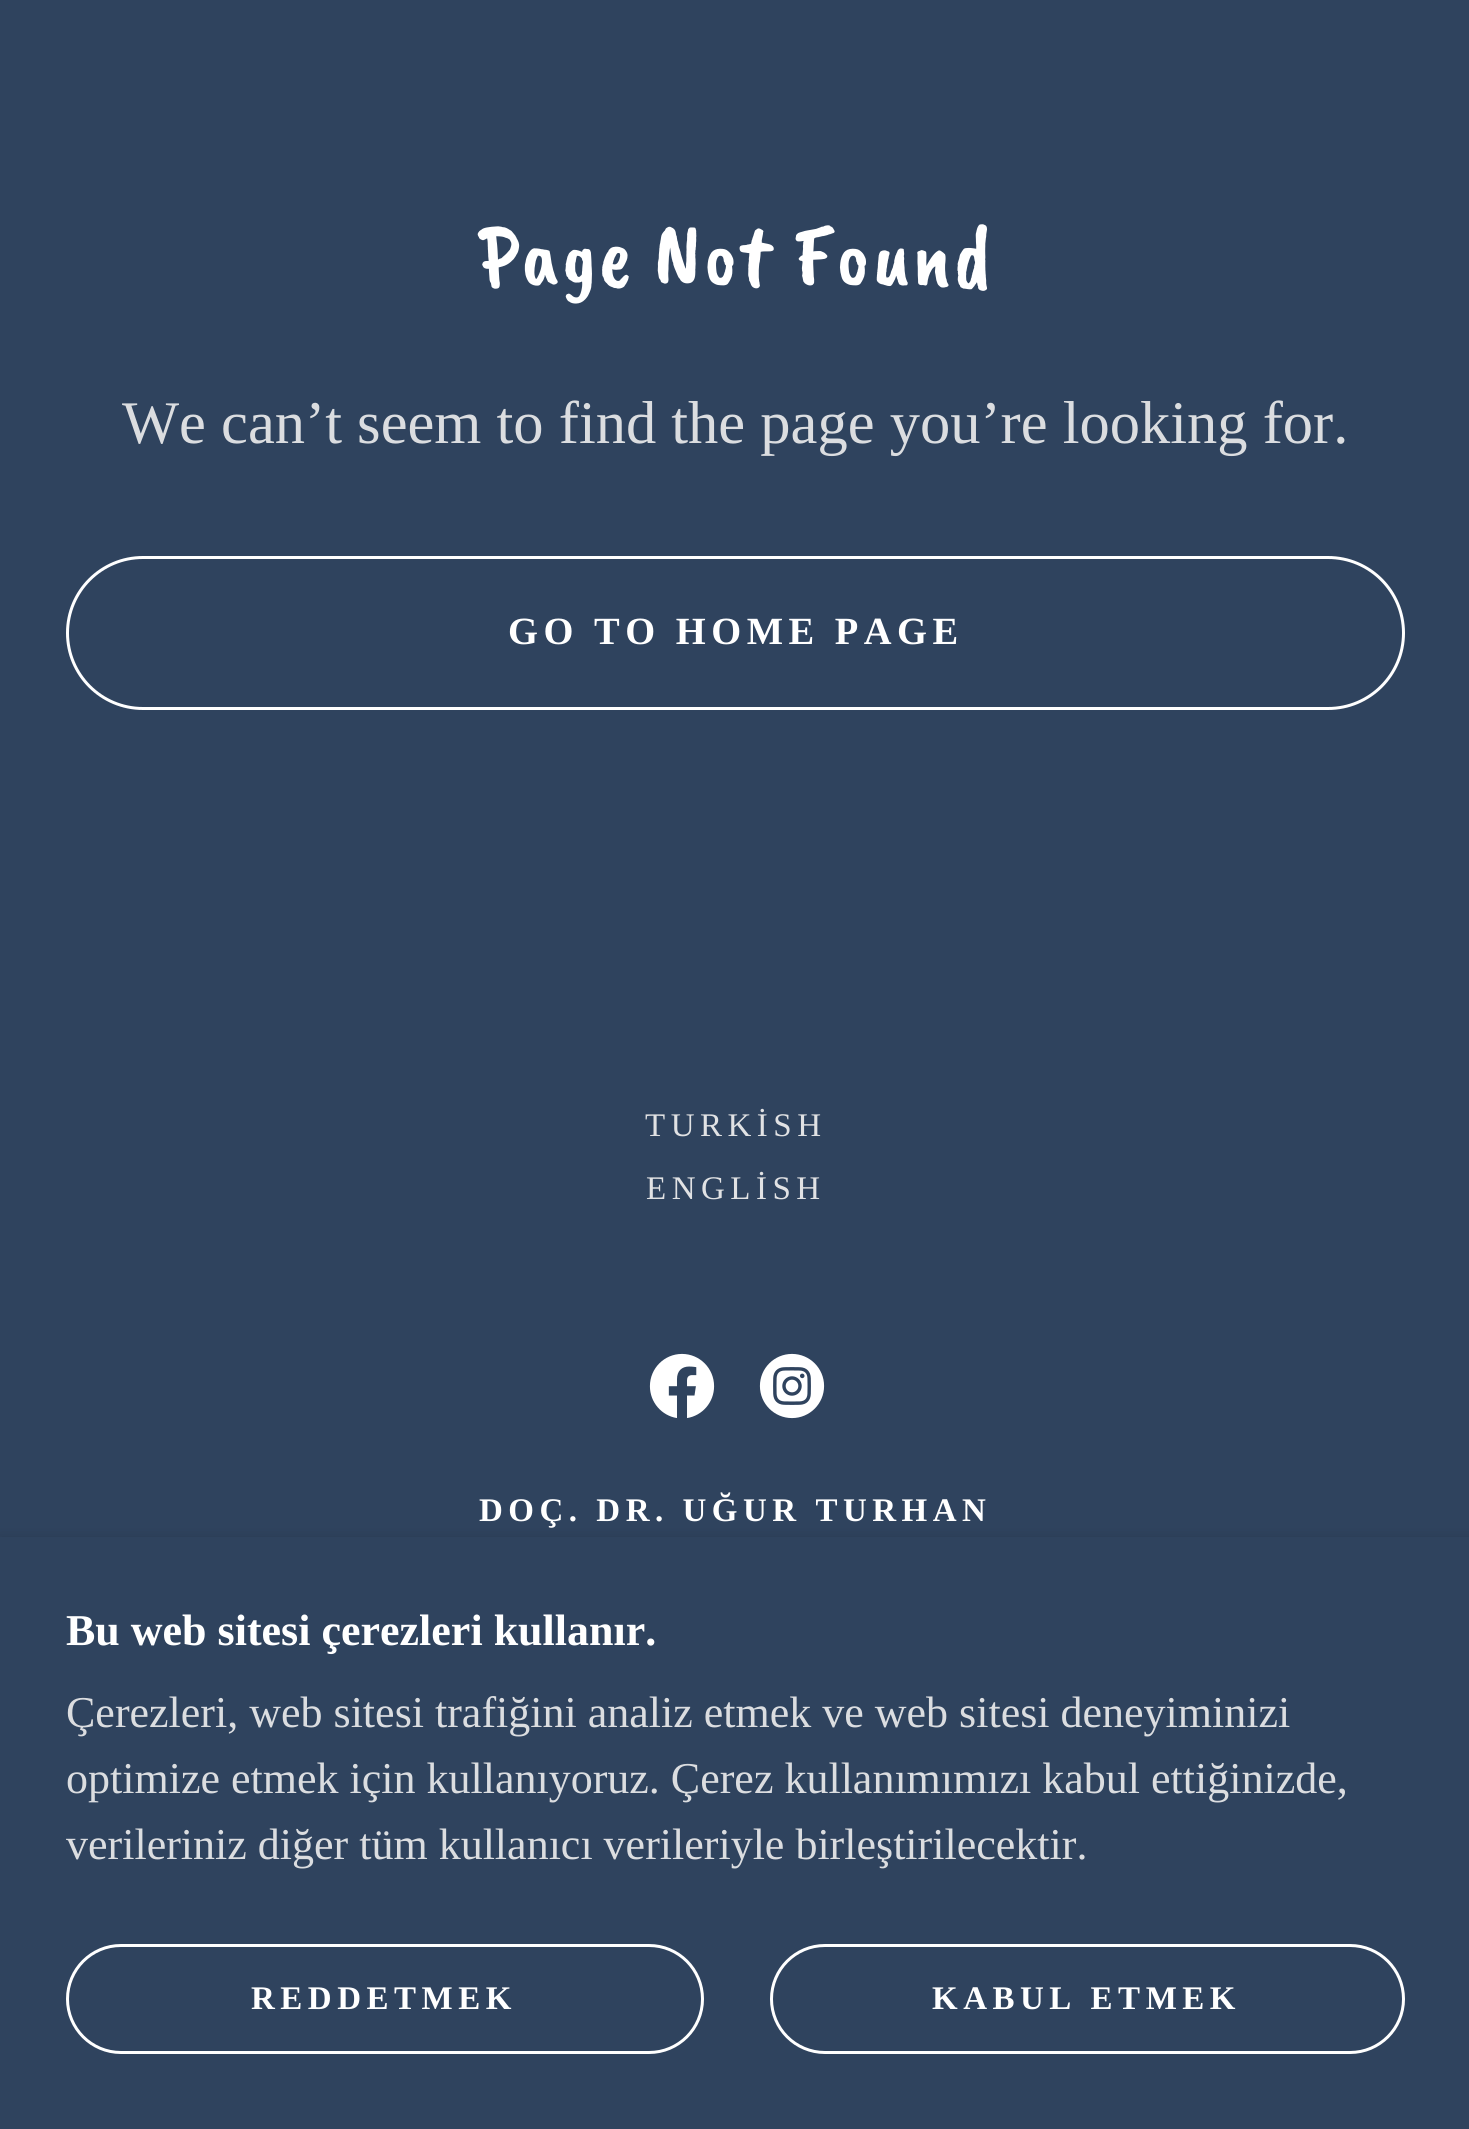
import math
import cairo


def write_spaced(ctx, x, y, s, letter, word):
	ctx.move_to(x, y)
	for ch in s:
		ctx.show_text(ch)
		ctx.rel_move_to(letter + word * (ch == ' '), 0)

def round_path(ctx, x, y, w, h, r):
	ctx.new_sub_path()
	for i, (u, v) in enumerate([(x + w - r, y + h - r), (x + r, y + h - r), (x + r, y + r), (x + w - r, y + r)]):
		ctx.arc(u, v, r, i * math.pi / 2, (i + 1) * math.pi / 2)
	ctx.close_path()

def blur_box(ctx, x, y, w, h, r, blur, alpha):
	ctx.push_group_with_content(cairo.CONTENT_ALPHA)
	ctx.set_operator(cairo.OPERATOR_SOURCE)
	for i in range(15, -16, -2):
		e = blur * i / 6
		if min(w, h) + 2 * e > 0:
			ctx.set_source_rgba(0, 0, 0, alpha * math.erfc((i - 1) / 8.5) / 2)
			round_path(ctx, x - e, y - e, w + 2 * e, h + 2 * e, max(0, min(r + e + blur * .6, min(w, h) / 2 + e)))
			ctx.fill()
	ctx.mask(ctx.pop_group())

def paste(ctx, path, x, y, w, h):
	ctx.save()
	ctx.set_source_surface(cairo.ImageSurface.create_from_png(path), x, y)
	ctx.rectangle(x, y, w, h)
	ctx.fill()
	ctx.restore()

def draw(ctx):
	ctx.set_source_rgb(0.184, 0.263, 0.369)
	ctx.paint()
	ctx.select_font_face('Caveat Brush')
	ctx.set_font_size(88)
	ctx.set_source_rgb(1, 1, 1)
	write_spaced(ctx, 478, 285, 'Page Not Found', 2, 0)
	ctx.select_font_face('Liberation Serif')
	ctx.set_font_size(60.5)
	ctx.set_source_rgb(0.859, 0.867, 0.878)
	ctx.move_to(122, 443)
	ctx.show_text('We can’t seem to find the page you’re looking for.')
	round_path(ctx, 67.5, 557.5, 1336, 151, 75.5)
	ctx.set_source_rgb(1, 1, 1)
	ctx.set_line_width(3)
	ctx.stroke()
	ctx.select_font_face('Liberation Serif', cairo.FONT_SLANT_NORMAL, cairo.FONT_WEIGHT_BOLD)
	ctx.set_font_size(38.5)
	write_spaced(ctx, 508, 644, 'GO TO HOME PAGE', 5.5, 0)
	ctx.select_font_face('Liberation Serif')
	ctx.set_font_size(33)
	ctx.set_source_rgb(0.882, 0.886, 0.894)
	write_spaced(ctx, 645, 1136, 'TURKİSH', 5.5, 0)
	write_spaced(ctx, 646, 1199, 'ENGLİSH', 5.5, 0)
	paste(ctx, 'media/1.png', 649, 1353, 66, 65)
	paste(ctx, 'media/2.png', 759, 1353, 66, 66)
	ctx.select_font_face('Liberation Serif', cairo.FONT_SLANT_NORMAL, cairo.FONT_WEIGHT_BOLD)
	ctx.set_source_rgb(1, 1, 1)
	write_spaced(ctx, 479, 1521, 'DOÇ. DR. UĞUR TURHAN', 5.5, 0)
	ctx.set_source_rgb(0, 0, 0)
	blur_box(ctx, 0, 1543, 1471, 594, 0, 8, 0.3)
	ctx.set_source_rgb(0.184, 0.263, 0.369)
	ctx.rectangle(0, 1537, 1469, 592)
	ctx.fill()
	ctx.set_font_size(44)
	ctx.set_source_rgb(1, 1, 1)
	ctx.move_to(66, 1645)
	ctx.show_text('Bu web sitesi çerezleri kullanır.')
	ctx.select_font_face('Liberation Serif')
	ctx.set_source_rgb(0.859, 0.867, 0.878)
	for x, y, s in [
		(66, 1727, 'Çerezleri, web sitesi trafiğini analiz etmek ve web sitesi deneyiminizi'),
		(66, 1793, 'optimize etmek için kullanıyoruz. Çerez kullanımımızı kabul ettiğinizde,'),
		(66, 1859, 'verileriniz diğer tüm kullanıcı verileriyle birleştirilecektir.'),
	]:
		ctx.move_to(x, y)
		ctx.show_text(s)
	round_path(ctx, 67.5, 1945.5, 635, 107, 53.5)
	ctx.set_source_rgb(1, 1, 1)
	ctx.stroke()
	ctx.select_font_face('Liberation Serif', cairo.FONT_SLANT_NORMAL, cairo.FONT_WEIGHT_BOLD)
	ctx.set_font_size(33)
	write_spaced(ctx, 251, 2009, 'REDDETMEK', 5.5, 0)
	round_path(ctx, 771.5, 1945.5, 632, 107, 53.5)
	ctx.stroke()
	write_spaced(ctx, 932, 2009, 'KABUL ETMEK', 5.5, 0)


surface = cairo.ImageSurface(cairo.FORMAT_RGB24, 1469, 2129)
ctx = cairo.Context(surface)
options = cairo.FontOptions()
options.set_hint_metrics(cairo.HINT_METRICS_OFF)
options.set_hint_style(cairo.HINT_STYLE_NONE)
ctx.set_font_options(options)
ctx.set_miter_limit(4)
draw(ctx)
surface.write_to_png('image.png')
